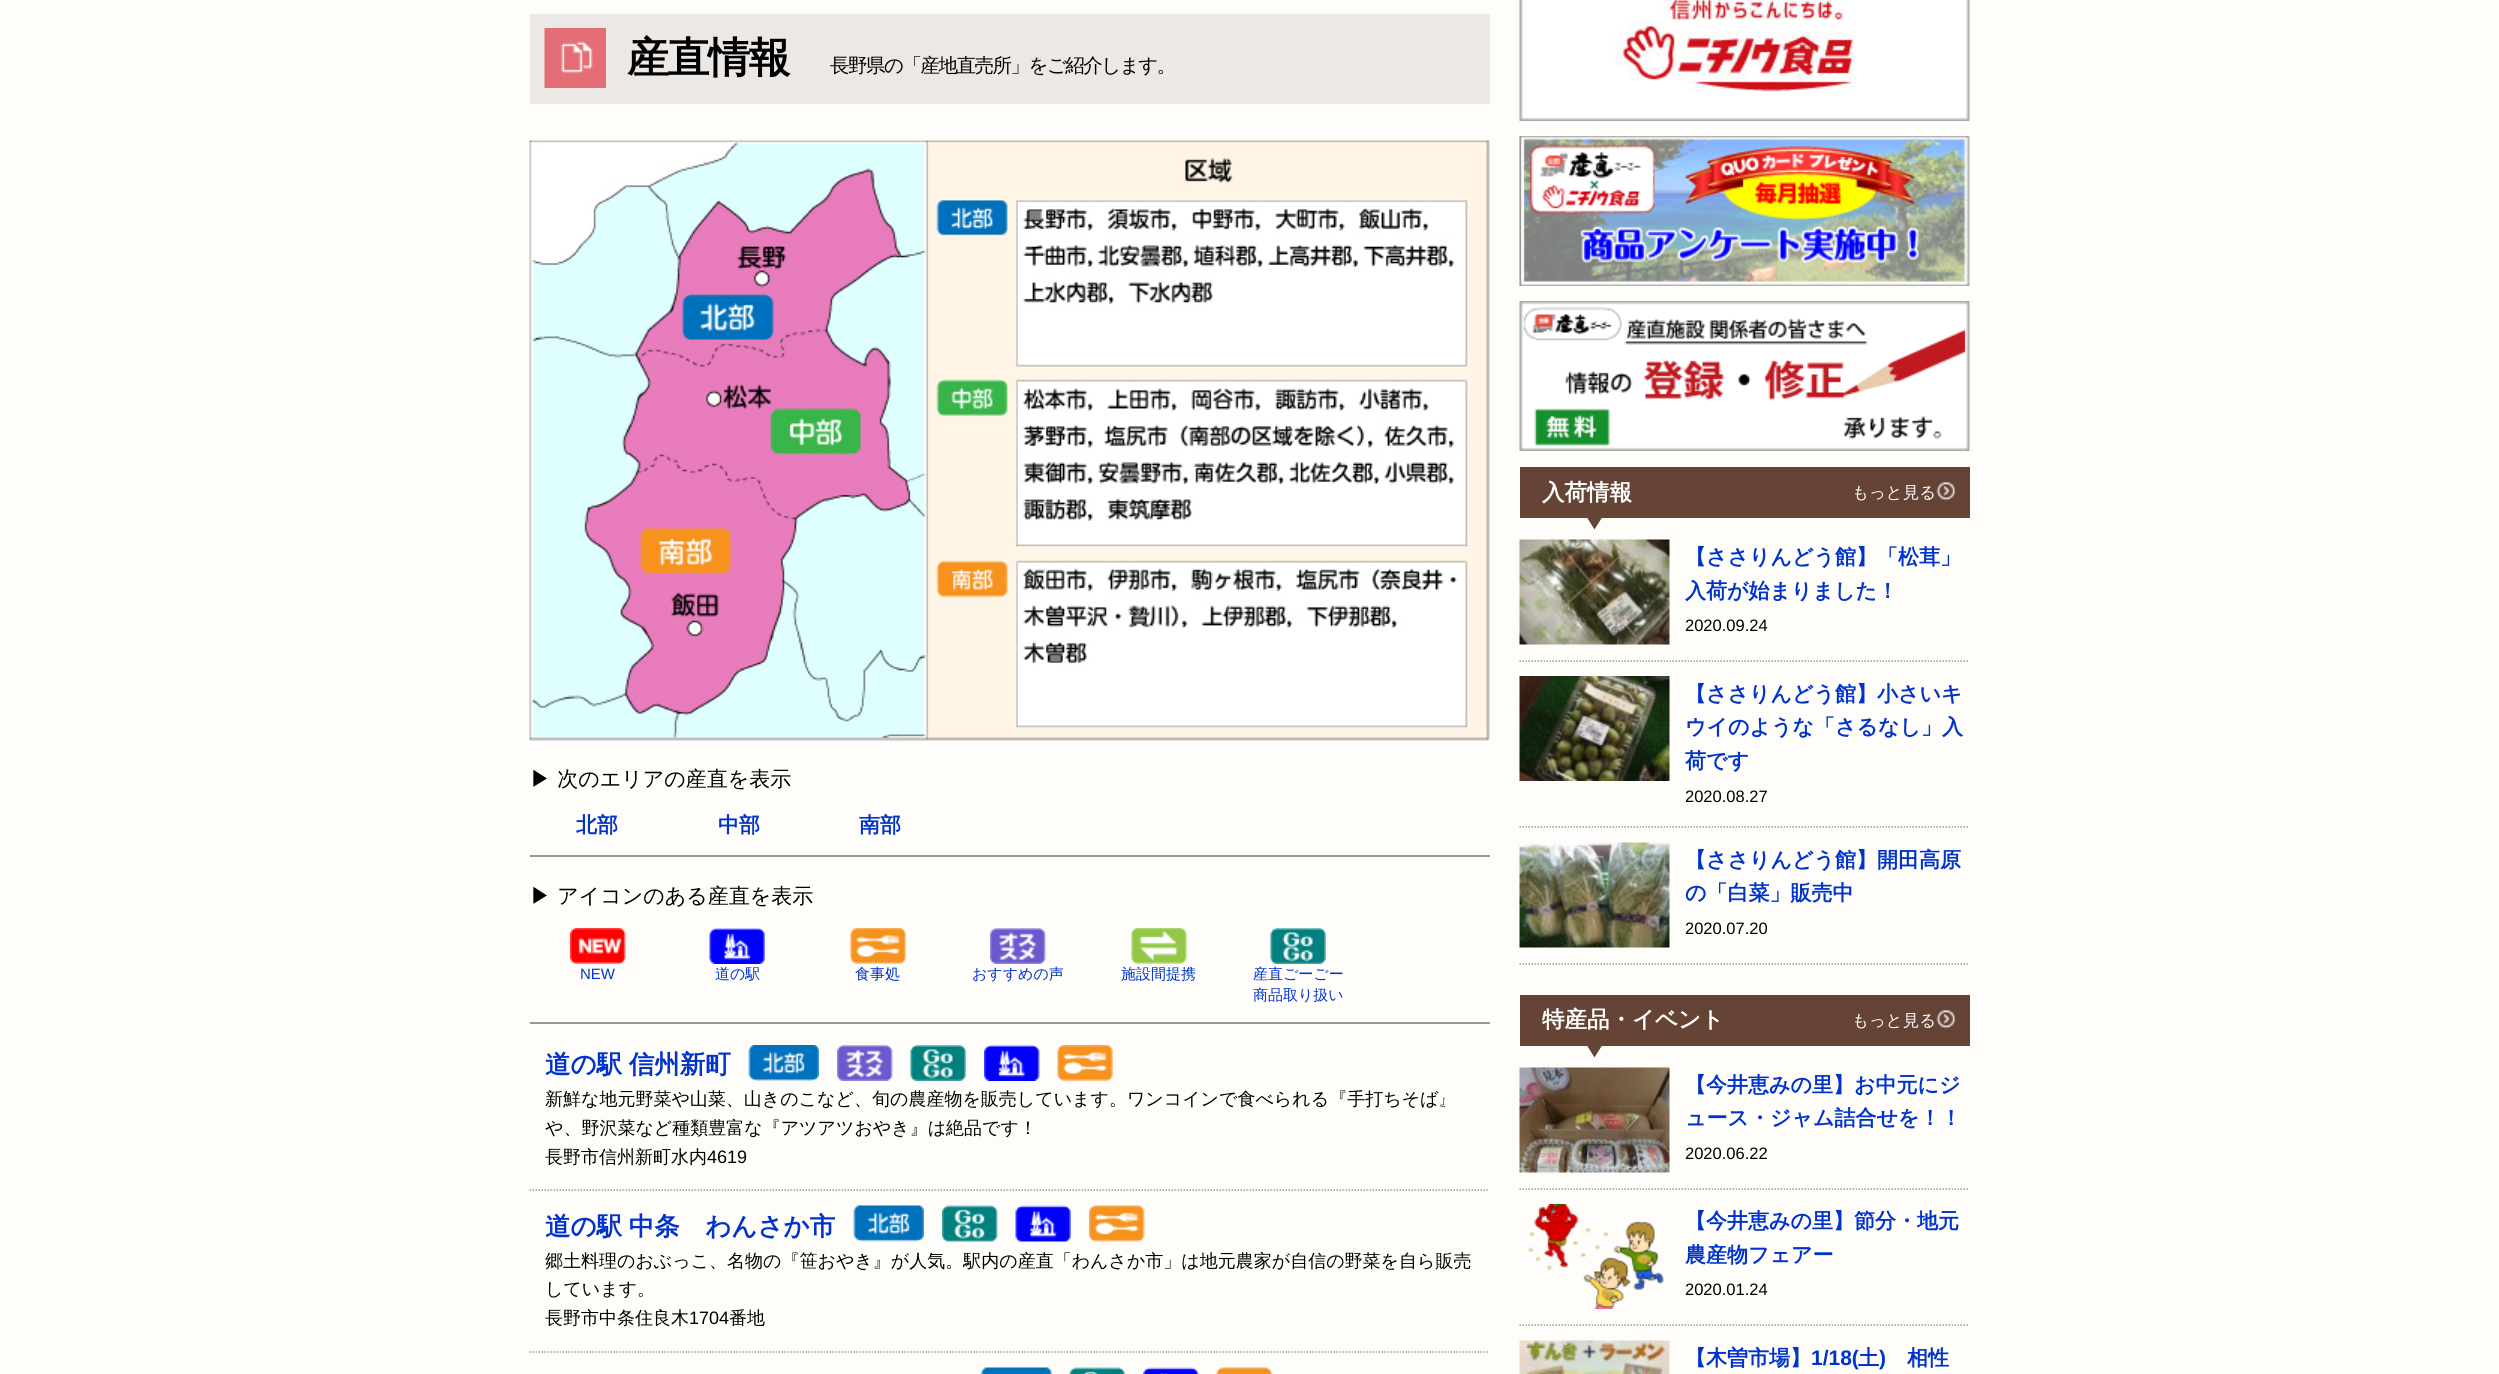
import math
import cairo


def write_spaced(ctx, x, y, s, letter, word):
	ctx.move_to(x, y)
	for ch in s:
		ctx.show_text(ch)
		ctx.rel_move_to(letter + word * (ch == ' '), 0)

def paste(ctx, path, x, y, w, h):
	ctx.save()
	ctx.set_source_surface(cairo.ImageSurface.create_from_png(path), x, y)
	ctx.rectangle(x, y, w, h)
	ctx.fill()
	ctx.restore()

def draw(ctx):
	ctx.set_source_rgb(1, 0.992, 0.973)
	ctx.paint()
	ctx.set_source_rgb(0.925, 0.91, 0.898)
	ctx.rectangle(530, 14, 960, 90)
	ctx.fill()
	paste(ctx, 'media/1.png', 544, 28, 62, 60)
	ctx.select_font_face('WenQuanYi Zen Hei', cairo.FONT_SLANT_NORMAL, cairo.FONT_WEIGHT_BOLD)
	ctx.set_font_size(42)
	ctx.set_source_rgb(0, 0, 0)
	write_spaced(ctx, 627, 72, '産直情報', -1.5, 0)
	ctx.select_font_face('WenQuanYi Zen Hei Medium')
	ctx.set_font_size(19.5)
	write_spaced(ctx, 830, 72, '長野県の「産地直売所」をご紹介します。', -1.5, 0)
	paste(ctx, 'media/2.png', 529, 140, 961, 601)
	ctx.set_font_size(21)
	ctx.move_to(530, 786)
	ctx.show_text('▶ 次のエリアの産直を表示')
	ctx.set_source_rgb(0.6, 0.6, 0.6)
	ctx.rectangle(530, 855, 960, 2)
	ctx.fill()
	ctx.select_font_face('WenQuanYi Zen Hei', cairo.FONT_SLANT_NORMAL, cairo.FONT_WEIGHT_BOLD)
	ctx.set_source_rgb(0, 0.2, 0.8)
	for x, y, s in [
		(576, 832, '北部'),
		(718, 832, '中部'),
		(859, 832, '南部'),
	]:
		ctx.move_to(x, y)
		ctx.show_text(s)
	ctx.select_font_face('WenQuanYi Zen Hei Medium')
	ctx.set_source_rgb(0, 0, 0)
	ctx.move_to(530, 903)
	ctx.show_text('▶ アイコンのある産直を表示')
	ctx.set_source_rgb(0.6, 0.6, 0.6)
	ctx.rectangle(530, 1022, 960, 2)
	ctx.fill()
	paste(ctx, 'media/3.png', 570, 928, 56, 36)
	ctx.select_font_face('Liberation Sans')
	ctx.set_font_size(15)
	ctx.set_source_rgb(0, 0.2, 0.8)
	ctx.move_to(580, 979)
	ctx.show_text('NEW')
	paste(ctx, 'media/4.png', 709, 928, 56, 36)
	ctx.select_font_face('WenQuanYi Zen Hei Medium')
	ctx.move_to(715, 979)
	ctx.show_text('道の駅')
	paste(ctx, 'media/5.png', 850, 928, 56, 36)
	ctx.move_to(855, 979)
	ctx.show_text('食事処')
	paste(ctx, 'media/6.png', 990, 928, 56, 36)
	ctx.move_to(972, 979)
	ctx.show_text('おすすめの声')
	paste(ctx, 'media/7.png', 1131, 928, 56, 36)
	ctx.move_to(1121, 979)
	ctx.show_text('施設間提携')
	paste(ctx, 'media/8.png', 1270, 928, 56, 36)
	ctx.move_to(1253, 979)
	ctx.show_text('産直ごーごー')
	ctx.move_to(1253, 1000)
	ctx.show_text('商品取り扱い')
	ctx.new_path()
	ctx.move_to(529.5, 1190)
	ctx.line_to(1489.5, 1190)
	ctx.set_source_rgb(0.6, 0.6, 0.6)
	ctx.set_line_width(1.5)
	ctx.set_dash([1.5, 1.5])
	ctx.stroke()
	ctx.select_font_face('WenQuanYi Zen Hei', cairo.FONT_SLANT_NORMAL, cairo.FONT_WEIGHT_BOLD)
	ctx.set_font_size(25.5)
	ctx.set_source_rgb(0, 0.2, 0.8)
	write_spaced(ctx, 545, 1073, '道の駅 信州新町', 0, -1)
	paste(ctx, 'media/9.png', 748, 1045, 71, 36)
	paste(ctx, 'media/6.png', 837, 1045, 56, 36)
	paste(ctx, 'media/8.png', 910, 1045, 56, 36)
	paste(ctx, 'media/10.png', 984, 1045, 56, 36)
	paste(ctx, 'media/11.png', 1057, 1045, 56, 36)
	ctx.select_font_face('WenQuanYi Zen Hei Medium')
	ctx.set_font_size(18)
	ctx.set_source_rgb(0, 0, 0)
	for x, y, s in [
		(545, 1105, '新鮮な地元野菜や山菜、山きのこなど、旬の農産物を販売しています。ワンコインで食べられる『手打ちそば』'),
		(545, 1134, 'や、野沢菜など種類豊富な『アツアツおやき』は絶品です！'),
		(545, 1163, '長野市信州新町水内'),
	]:
		ctx.move_to(x, y)
		ctx.show_text(s)
	ctx.select_font_face('Liberation Sans')
	ctx.move_to(707, 1163)
	ctx.show_text('4619')
	ctx.new_path()
	ctx.move_to(529.5, 1352)
	ctx.line_to(1489.5, 1352)
	ctx.set_source_rgb(0.6, 0.6, 0.6)
	ctx.stroke()
	ctx.select_font_face('WenQuanYi Zen Hei', cairo.FONT_SLANT_NORMAL, cairo.FONT_WEIGHT_BOLD)
	ctx.set_font_size(25.5)
	ctx.set_source_rgb(0, 0.2, 0.8)
	write_spaced(ctx, 545, 1235, '道の駅 中条　わんさか市', 0, -1)
	paste(ctx, 'media/12.png', 853, 1205, 71, 37)
	paste(ctx, 'media/13.png', 942, 1205, 56, 37)
	paste(ctx, 'media/14.png', 1015, 1205, 56, 37)
	paste(ctx, 'media/15.png', 1089, 1205, 56, 37)
	ctx.select_font_face('WenQuanYi Zen Hei Medium')
	ctx.set_font_size(18)
	ctx.set_source_rgb(0, 0, 0)
	for x, y, s in [
		(545, 1267, '郷土料理のおぶっこ、名物の『笹おやき』が人気。駅内の産直「わんさか市」は地元農家が自信の野菜を自ら販売'),
		(545, 1295, 'しています。'),
		(545, 1324, '長野市中条住良木'),
	]:
		ctx.move_to(x, y)
		ctx.show_text(s)
	ctx.select_font_face('Liberation Sans')
	ctx.move_to(689, 1324)
	ctx.show_text('1704')
	ctx.select_font_face('WenQuanYi Zen Hei Medium')
	ctx.move_to(729, 1324)
	ctx.show_text('番地')
	paste(ctx, 'media/16.png', 981, 1367, 71, 7)
	paste(ctx, 'media/17.png', 1069, 1367, 56, 7)
	paste(ctx, 'media/18.png', 1143, 1367, 56, 7)
	paste(ctx, 'media/19.png', 1216, 1367, 56, 7)
	paste(ctx, 'media/20.png', 1519, 0, 451, 121)
	paste(ctx, 'media/21.png', 1519, 136, 451, 150)
	paste(ctx, 'media/22.png', 1519, 301, 451, 150)
	ctx.set_source_rgb(0.396, 0.267, 0.208)
	ctx.rectangle(1520, 467, 450, 51)
	ctx.fill()
	ctx.select_font_face('WenQuanYi Zen Hei', cairo.FONT_SLANT_NORMAL, cairo.FONT_WEIGHT_BOLD)
	ctx.set_font_size(22.5)
	ctx.set_source_rgb(1, 1, 1)
	ctx.move_to(1542, 500)
	ctx.show_text('入荷情報')
	ctx.set_source_rgb(0.396, 0.267, 0.208)
	ctx.new_path()
	ctx.move_to(1587, 517.5)
	ctx.line_to(1602, 517.5)
	ctx.line_to(1594.5, 529.5)
	ctx.close_path()
	ctx.fill()
	ctx.select_font_face('WenQuanYi Zen Hei Medium')
	ctx.set_font_size(16.5)
	ctx.set_source_rgb(1, 1, 1)
	ctx.move_to(1852, 498)
	ctx.show_text('もっと見る')
	paste(ctx, 'media/23.png', 1936, 482, 19, 19)
	paste(ctx, 'media/24.png', 1519, 539, 151, 106)
	ctx.new_path()
	ctx.move_to(1519.5, 661)
	ctx.line_to(1969.5, 661)
	ctx.set_source_rgb(0.6, 0.6, 0.6)
	ctx.stroke()
	ctx.select_font_face('WenQuanYi Zen Hei', cairo.FONT_SLANT_NORMAL, cairo.FONT_WEIGHT_BOLD)
	ctx.set_font_size(21)
	ctx.set_source_rgb(0, 0.2, 0.8)
	ctx.move_to(1685, 564)
	ctx.show_text('【ささりんどう館】「松茸」')
	ctx.move_to(1685, 598)
	ctx.show_text('入荷が始まりました！')
	ctx.select_font_face('Liberation Sans')
	ctx.set_font_size(16.5)
	ctx.set_source_rgb(0, 0, 0)
	ctx.move_to(1685, 631)
	ctx.show_text('2020.09.24')
	paste(ctx, 'media/25.png', 1519, 676, 151, 105)
	ctx.new_path()
	ctx.move_to(1519.5, 827)
	ctx.line_to(1969.5, 827)
	ctx.set_source_rgb(0.6, 0.6, 0.6)
	ctx.stroke()
	ctx.select_font_face('WenQuanYi Zen Hei', cairo.FONT_SLANT_NORMAL, cairo.FONT_WEIGHT_BOLD)
	ctx.set_font_size(21)
	ctx.set_source_rgb(0, 0.2, 0.8)
	for x, y, s in [
		(1685, 701, '【ささりんどう館】小さいキ'),
		(1685, 734, 'ウイのような「さるなし」入'),
		(1685, 768, '荷です'),
	]:
		ctx.move_to(x, y)
		ctx.show_text(s)
	ctx.select_font_face('Liberation Sans')
	ctx.set_font_size(16.5)
	ctx.set_source_rgb(0, 0, 0)
	ctx.move_to(1685, 802)
	ctx.show_text('2020.08.27')
	paste(ctx, 'media/26.png', 1519, 842, 151, 106)
	ctx.new_path()
	ctx.move_to(1519.5, 964)
	ctx.line_to(1969.5, 964)
	ctx.set_source_rgb(0.6, 0.6, 0.6)
	ctx.stroke()
	ctx.select_font_face('WenQuanYi Zen Hei', cairo.FONT_SLANT_NORMAL, cairo.FONT_WEIGHT_BOLD)
	ctx.set_font_size(21)
	ctx.set_source_rgb(0, 0.2, 0.8)
	ctx.move_to(1685, 867)
	ctx.show_text('【ささりんどう館】開田高原')
	ctx.move_to(1685, 900)
	ctx.show_text('の「白菜」販売中')
	ctx.select_font_face('Liberation Sans')
	ctx.set_font_size(16.5)
	ctx.set_source_rgb(0, 0, 0)
	ctx.move_to(1685, 934)
	ctx.show_text('2020.07.20')
	ctx.set_source_rgb(0.396, 0.267, 0.208)
	ctx.rectangle(1520, 995, 450, 51)
	ctx.fill()
	ctx.select_font_face('WenQuanYi Zen Hei', cairo.FONT_SLANT_NORMAL, cairo.FONT_WEIGHT_BOLD)
	ctx.set_font_size(22.5)
	ctx.set_source_rgb(1, 1, 1)
	ctx.move_to(1542, 1027)
	ctx.show_text('特産品・イベント')
	ctx.set_source_rgb(0.396, 0.267, 0.208)
	ctx.new_path()
	ctx.move_to(1587, 1045.5)
	ctx.line_to(1602, 1045.5)
	ctx.line_to(1594.5, 1057.5)
	ctx.close_path()
	ctx.fill()
	ctx.select_font_face('WenQuanYi Zen Hei Medium')
	ctx.set_font_size(16.5)
	ctx.set_source_rgb(1, 1, 1)
	ctx.move_to(1852, 1026)
	ctx.show_text('もっと見る')
	paste(ctx, 'media/23.png', 1936, 1010, 19, 19)
	paste(ctx, 'media/27.png', 1519, 1067, 151, 106)
	ctx.new_path()
	ctx.move_to(1519.5, 1189)
	ctx.line_to(1969.5, 1189)
	ctx.set_source_rgb(0.6, 0.6, 0.6)
	ctx.stroke()
	ctx.select_font_face('WenQuanYi Zen Hei', cairo.FONT_SLANT_NORMAL, cairo.FONT_WEIGHT_BOLD)
	ctx.set_font_size(21)
	ctx.set_source_rgb(0, 0.2, 0.8)
	ctx.move_to(1685, 1092)
	ctx.show_text('【今井恵みの里】お中元にジ')
	ctx.move_to(1685, 1125)
	ctx.show_text('ュース・ジャム詰合せを！！')
	ctx.select_font_face('Liberation Sans')
	ctx.set_font_size(16.5)
	ctx.set_source_rgb(0, 0, 0)
	ctx.move_to(1685, 1159)
	ctx.show_text('2020.06.22')
	paste(ctx, 'media/28.png', 1528, 1204, 136, 105)
	ctx.new_path()
	ctx.move_to(1519.5, 1325)
	ctx.line_to(1969.5, 1325)
	ctx.set_source_rgb(0.6, 0.6, 0.6)
	ctx.stroke()
	ctx.select_font_face('WenQuanYi Zen Hei', cairo.FONT_SLANT_NORMAL, cairo.FONT_WEIGHT_BOLD)
	ctx.set_font_size(21)
	ctx.set_source_rgb(0, 0.2, 0.8)
	ctx.move_to(1685, 1228)
	ctx.show_text('【今井恵みの里】節分・地元')
	ctx.move_to(1685, 1262)
	ctx.show_text('農産物フェアー')
	ctx.select_font_face('Liberation Sans')
	ctx.set_font_size(16.5)
	ctx.set_source_rgb(0, 0, 0)
	ctx.move_to(1685, 1295)
	ctx.show_text('2020.01.24')
	paste(ctx, 'media/29.png', 1519, 1340, 151, 34)
	ctx.select_font_face('WenQuanYi Zen Hei', cairo.FONT_SLANT_NORMAL, cairo.FONT_WEIGHT_BOLD)
	ctx.set_font_size(21)
	ctx.set_source_rgb(0, 0.2, 0.8)
	ctx.move_to(1685, 1365)
	ctx.show_text('【木曽市場】')
	ctx.select_font_face('Liberation Sans', cairo.FONT_SLANT_NORMAL, cairo.FONT_WEIGHT_BOLD)
	ctx.move_to(1811, 1365)
	ctx.show_text('1/18(')
	ctx.select_font_face('WenQuanYi Zen Hei', cairo.FONT_SLANT_NORMAL, cairo.FONT_WEIGHT_BOLD)
	ctx.move_to(1858, 1365)
	ctx.show_text('土')
	ctx.select_font_face('Liberation Sans', cairo.FONT_SLANT_NORMAL, cairo.FONT_WEIGHT_BOLD)
	ctx.move_to(1879, 1365)
	ctx.show_text(')')
	ctx.select_font_face('WenQuanYi Zen Hei', cairo.FONT_SLANT_NORMAL, cairo.FONT_WEIGHT_BOLD)
	ctx.move_to(1907, 1365)
	ctx.show_text('相性')


surface = cairo.ImageSurface(cairo.FORMAT_RGB24, 2499, 1374)
ctx = cairo.Context(surface)
options = cairo.FontOptions()
options.set_hint_metrics(cairo.HINT_METRICS_OFF)
options.set_hint_style(cairo.HINT_STYLE_NONE)
ctx.set_font_options(options)
ctx.set_miter_limit(4)
draw(ctx)
surface.write_to_png('image.png')
